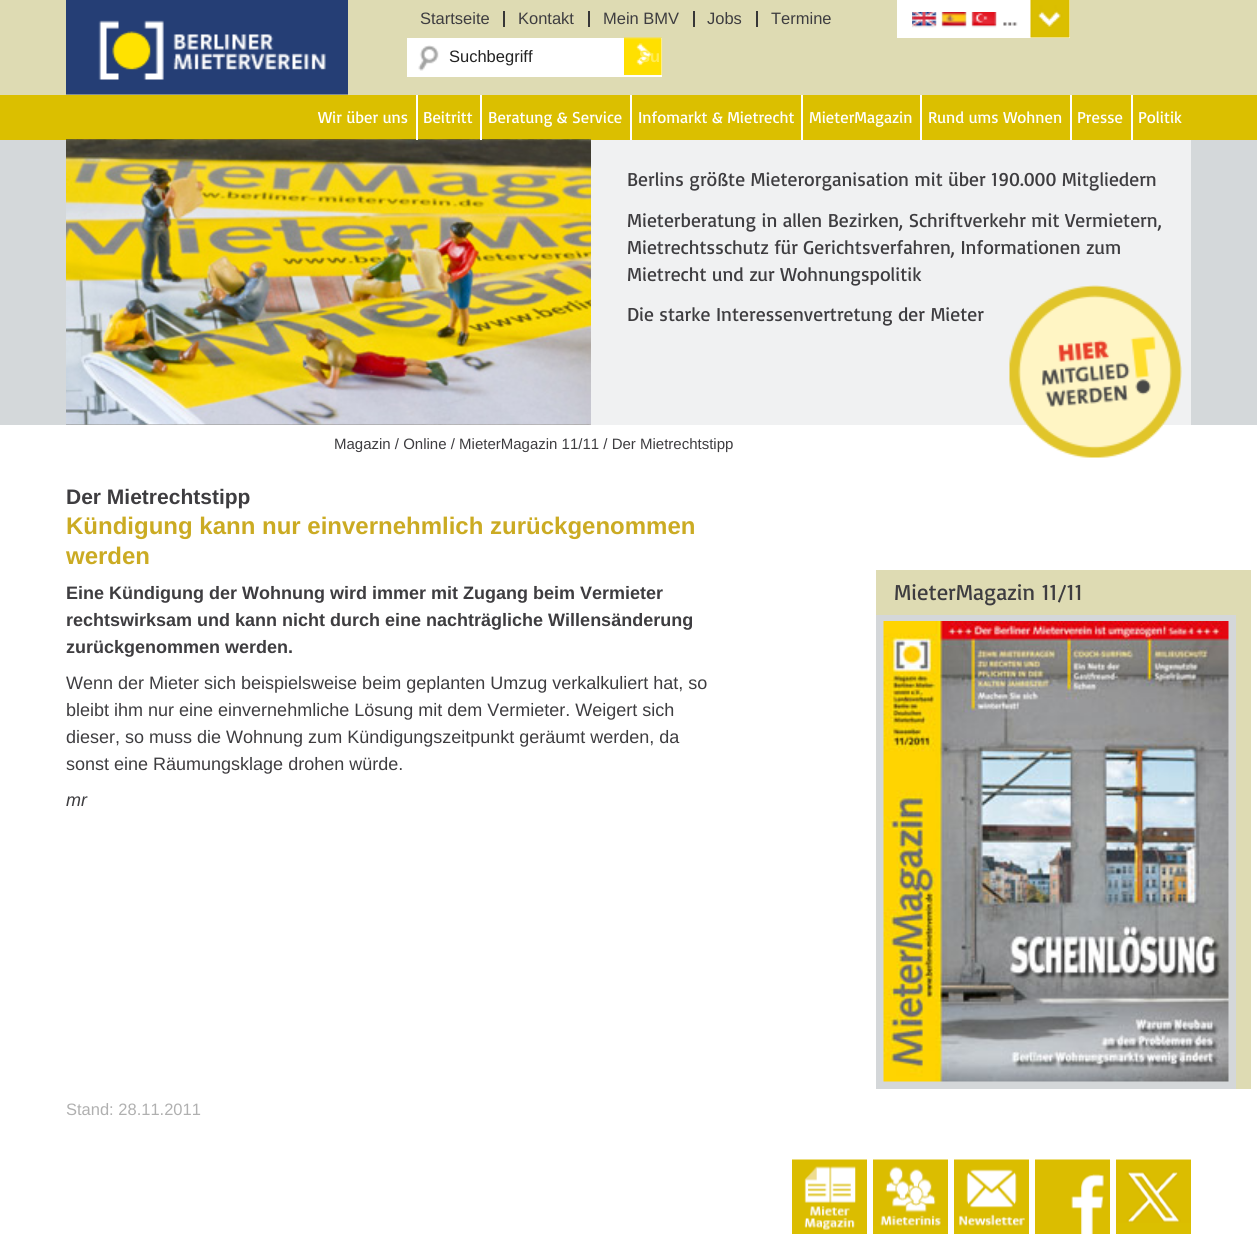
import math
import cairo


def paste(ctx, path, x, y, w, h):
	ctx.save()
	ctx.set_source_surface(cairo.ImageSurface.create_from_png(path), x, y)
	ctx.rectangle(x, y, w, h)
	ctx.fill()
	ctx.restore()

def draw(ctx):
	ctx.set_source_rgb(1, 1, 1)
	ctx.paint()
	ctx.set_source_rgb(0.871, 0.859, 0.702)
	ctx.rectangle(0, 0, 1257, 95)
	ctx.fill()
	ctx.set_source_rgb(0.216, 0.216, 0.216)
	ctx.rectangle(503, 11, 2, 16)
	ctx.fill()
	ctx.select_font_face('Liberation Sans')
	ctx.set_font_size(16.5)
	ctx.set_source_rgb(0.243, 0.239, 0.251)
	ctx.move_to(420, 24)
	ctx.show_text('Startseite')
	ctx.set_source_rgb(0.216, 0.216, 0.216)
	ctx.rectangle(588, 11, 2, 16)
	ctx.fill()
	ctx.set_source_rgb(0.243, 0.239, 0.251)
	ctx.move_to(518, 24)
	ctx.show_text('Kontakt')
	ctx.set_source_rgb(0.216, 0.216, 0.216)
	ctx.rectangle(693, 11, 2, 16)
	ctx.fill()
	ctx.set_source_rgb(0.243, 0.239, 0.251)
	ctx.move_to(603, 24)
	ctx.show_text('Mein BMV')
	ctx.set_source_rgb(0.216, 0.216, 0.216)
	ctx.rectangle(756, 11, 2, 16)
	ctx.fill()
	ctx.set_source_rgb(0.243, 0.239, 0.251)
	ctx.move_to(707, 24)
	ctx.show_text('Jobs')
	ctx.move_to(771, 24)
	ctx.show_text('Termine')
	ctx.set_source_rgb(1, 1, 1)
	ctx.rectangle(897, 0, 173, 38)
	ctx.fill()
	paste(ctx, 'media/1.png', 1030, 0, 40, 38)
	paste(ctx, 'media/2.png', 912, 12, 106, 16)
	ctx.rectangle(407, 38, 255, 39)
	ctx.fill()
	paste(ctx, 'media/3.png', 418, 45, 21, 26)
	ctx.set_source_rgb(0.133, 0.133, 0.133)
	ctx.move_to(449, 62)
	ctx.show_text('Suchbegriff')
	paste(ctx, 'media/4.png', 624, 37, 38, 38)
	ctx.select_font_face('Liberation Sans', cairo.FONT_SLANT_NORMAL, cairo.FONT_WEIGHT_BOLD)
	ctx.set_source_rgb(1, 0.918, 0.337)
	ctx.move_to(639, 62)
	ctx.show_text('Su')
	ctx.set_source_rgb(0.859, 0.749, 0)
	ctx.rectangle(0, 95, 1257, 45)
	ctx.fill()
	ctx.set_source_rgb(0.831, 0.847, 0.855)
	ctx.rectangle(0, 140, 1257, 285)
	ctx.fill()
	paste(ctx, 'media/6.png', 66, 139, 525, 286)
	paste(ctx, 'media/7.png', 66, 139, 525, 286)
	ctx.set_source_rgb(1, 1, 1)
	ctx.rectangle(416, 95, 2, 45)
	ctx.fill()
	ctx.select_font_face('Basic')
	ctx.move_to(318, 123)
	ctx.show_text('Wir über uns')
	ctx.rectangle(480, 95, 2, 45)
	ctx.fill()
	ctx.move_to(423, 123)
	ctx.show_text('Beitritt')
	ctx.rectangle(630, 95, 2, 45)
	ctx.fill()
	ctx.move_to(488, 123)
	ctx.show_text('Beratung & Service')
	ctx.rectangle(801, 95, 2, 45)
	ctx.fill()
	ctx.move_to(638, 123)
	ctx.show_text('Infomarkt & Mietrecht')
	ctx.rectangle(920, 95, 2, 45)
	ctx.fill()
	ctx.move_to(809, 123)
	ctx.show_text('MieterMagazin')
	ctx.rectangle(1070, 95, 2, 45)
	ctx.fill()
	ctx.move_to(928, 123)
	ctx.show_text('Rund ums Wohnen')
	ctx.rectangle(1131, 95, 2, 45)
	ctx.fill()
	ctx.move_to(1077, 123)
	ctx.show_text('Presse')
	ctx.move_to(1138, 123)
	ctx.show_text('Politik')
	paste(ctx, 'media/5.png', 66, 0, 282, 95)
	ctx.set_source_rgb(0.941, 0.945, 0.949)
	ctx.rectangle(591, 140, 600, 285)
	ctx.fill()
	ctx.set_font_size(19.5)
	ctx.set_source_rgb(0.243, 0.239, 0.251)
	for x, y, s in [
		(627, 186, 'Berlins größte Mieterorganisation mit über 190.000 Mitgliedern'),
		(627, 227, 'Mieterberatung in allen Bezirken, Schriftverkehr mit Vermietern,'),
		(627, 254, 'Mietrechtsschutz für Gerichtsverfahren, Informationen zum'),
		(627, 281, 'Mietrecht und zur Wohnungspolitik'),
		(627, 321, 'Die starke Interessenvertretung der Mieter'),
	]:
		ctx.move_to(x, y)
		ctx.show_text(s)
	paste(ctx, 'media/8.png', 1009, 285, 173, 173)
	ctx.select_font_face('Liberation Sans')
	ctx.set_font_size(15)
	ctx.move_to(334, 449)
	ctx.show_text('Magazin / Online / MieterMagazin 11/11 / Der Mietrechtstipp')
	ctx.select_font_face('Liberation Sans', cairo.FONT_SLANT_NORMAL, cairo.FONT_WEIGHT_BOLD)
	ctx.set_font_size(21)
	ctx.move_to(66, 504)
	ctx.show_text('Der Mietrechtstipp')
	ctx.set_font_size(24)
	ctx.set_source_rgb(0.796, 0.671, 0.137)
	ctx.move_to(66, 534)
	ctx.show_text('Kündigung kann nur einvernehmlich zurückgenommen')
	ctx.move_to(66, 564)
	ctx.show_text('werden')
	ctx.set_font_size(18)
	ctx.set_source_rgb(0.243, 0.239, 0.251)
	for x, y, s in [
		(66, 599, 'Eine Kündigung der Wohnung wird immer mit Zugang beim Vermieter'),
		(66, 626, 'rechtswirksam und kann nicht durch eine nachträgliche Willensänderung'),
		(66, 653, 'zurückgenommen werden.'),
	]:
		ctx.move_to(x, y)
		ctx.show_text(s)
	ctx.select_font_face('Liberation Sans')
	for x, y, s in [
		(66, 689, 'Wenn der Mieter sich beispielsweise beim geplanten Umzug verkalkuliert hat, so'),
		(66, 716, 'bleibt ihm nur eine einvernehmliche Lösung mit dem Vermieter. Weigert sich'),
		(66, 743, 'dieser, so muss die Wohnung zum Kündigungszeitpunkt geräumt werden, da'),
		(66, 770, 'sonst eine Räumungsklage drohen würde.'),
	]:
		ctx.move_to(x, y)
		ctx.show_text(s)
	ctx.select_font_face('Liberation Sans', cairo.FONT_SLANT_ITALIC)
	ctx.move_to(66, 806)
	ctx.show_text('mr')
	ctx.set_source_rgb(0.871, 0.859, 0.702)
	ctx.rectangle(1236, 570, 15, 519)
	ctx.fill()
	ctx.rectangle(876, 570, 360, 45)
	ctx.fill()
	ctx.select_font_face('Basic')
	ctx.set_font_size(22.5)
	ctx.set_source_rgb(0.243, 0.239, 0.251)
	ctx.move_to(894, 600)
	ctx.show_text('MieterMagazin 11/11')
	ctx.set_source_rgb(0.831, 0.843, 0.851)
	ctx.rectangle(876, 615, 360, 474)
	ctx.fill()
	paste(ctx, 'media/9.png', 883, 621, 346, 461)
	ctx.select_font_face('Liberation Sans')
	ctx.set_font_size(16.5)
	ctx.set_source_rgb(0.69, 0.69, 0.69)
	ctx.move_to(66, 1115)
	ctx.show_text('Stand: 28.11.2011')
	ctx.set_source_rgb(0.859, 0.749, 0)
	ctx.rectangle(792, 1230, 75, 4)
	ctx.fill()
	paste(ctx, 'media/10.png', 792, 1159, 75, 71)
	ctx.rectangle(873, 1226, 75, 8)
	ctx.fill()
	paste(ctx, 'media/11.png', 873, 1159, 75, 67)
	ctx.rectangle(954, 1226, 75, 8)
	ctx.fill()
	paste(ctx, 'media/12.png', 954, 1159, 75, 67)
	paste(ctx, 'media/13.png', 1035, 1159, 75, 75)
	ctx.rectangle(1116, 1160, 75, 74)
	ctx.fill()
	paste(ctx, 'media/14.png', 1116, 1159, 75, 64)


surface = cairo.ImageSurface(cairo.FORMAT_RGB24, 1257, 1234)
ctx = cairo.Context(surface)
options = cairo.FontOptions()
options.set_hint_metrics(cairo.HINT_METRICS_OFF)
options.set_hint_style(cairo.HINT_STYLE_NONE)
ctx.set_font_options(options)
ctx.set_miter_limit(4)
draw(ctx)
surface.write_to_png('image.png')
